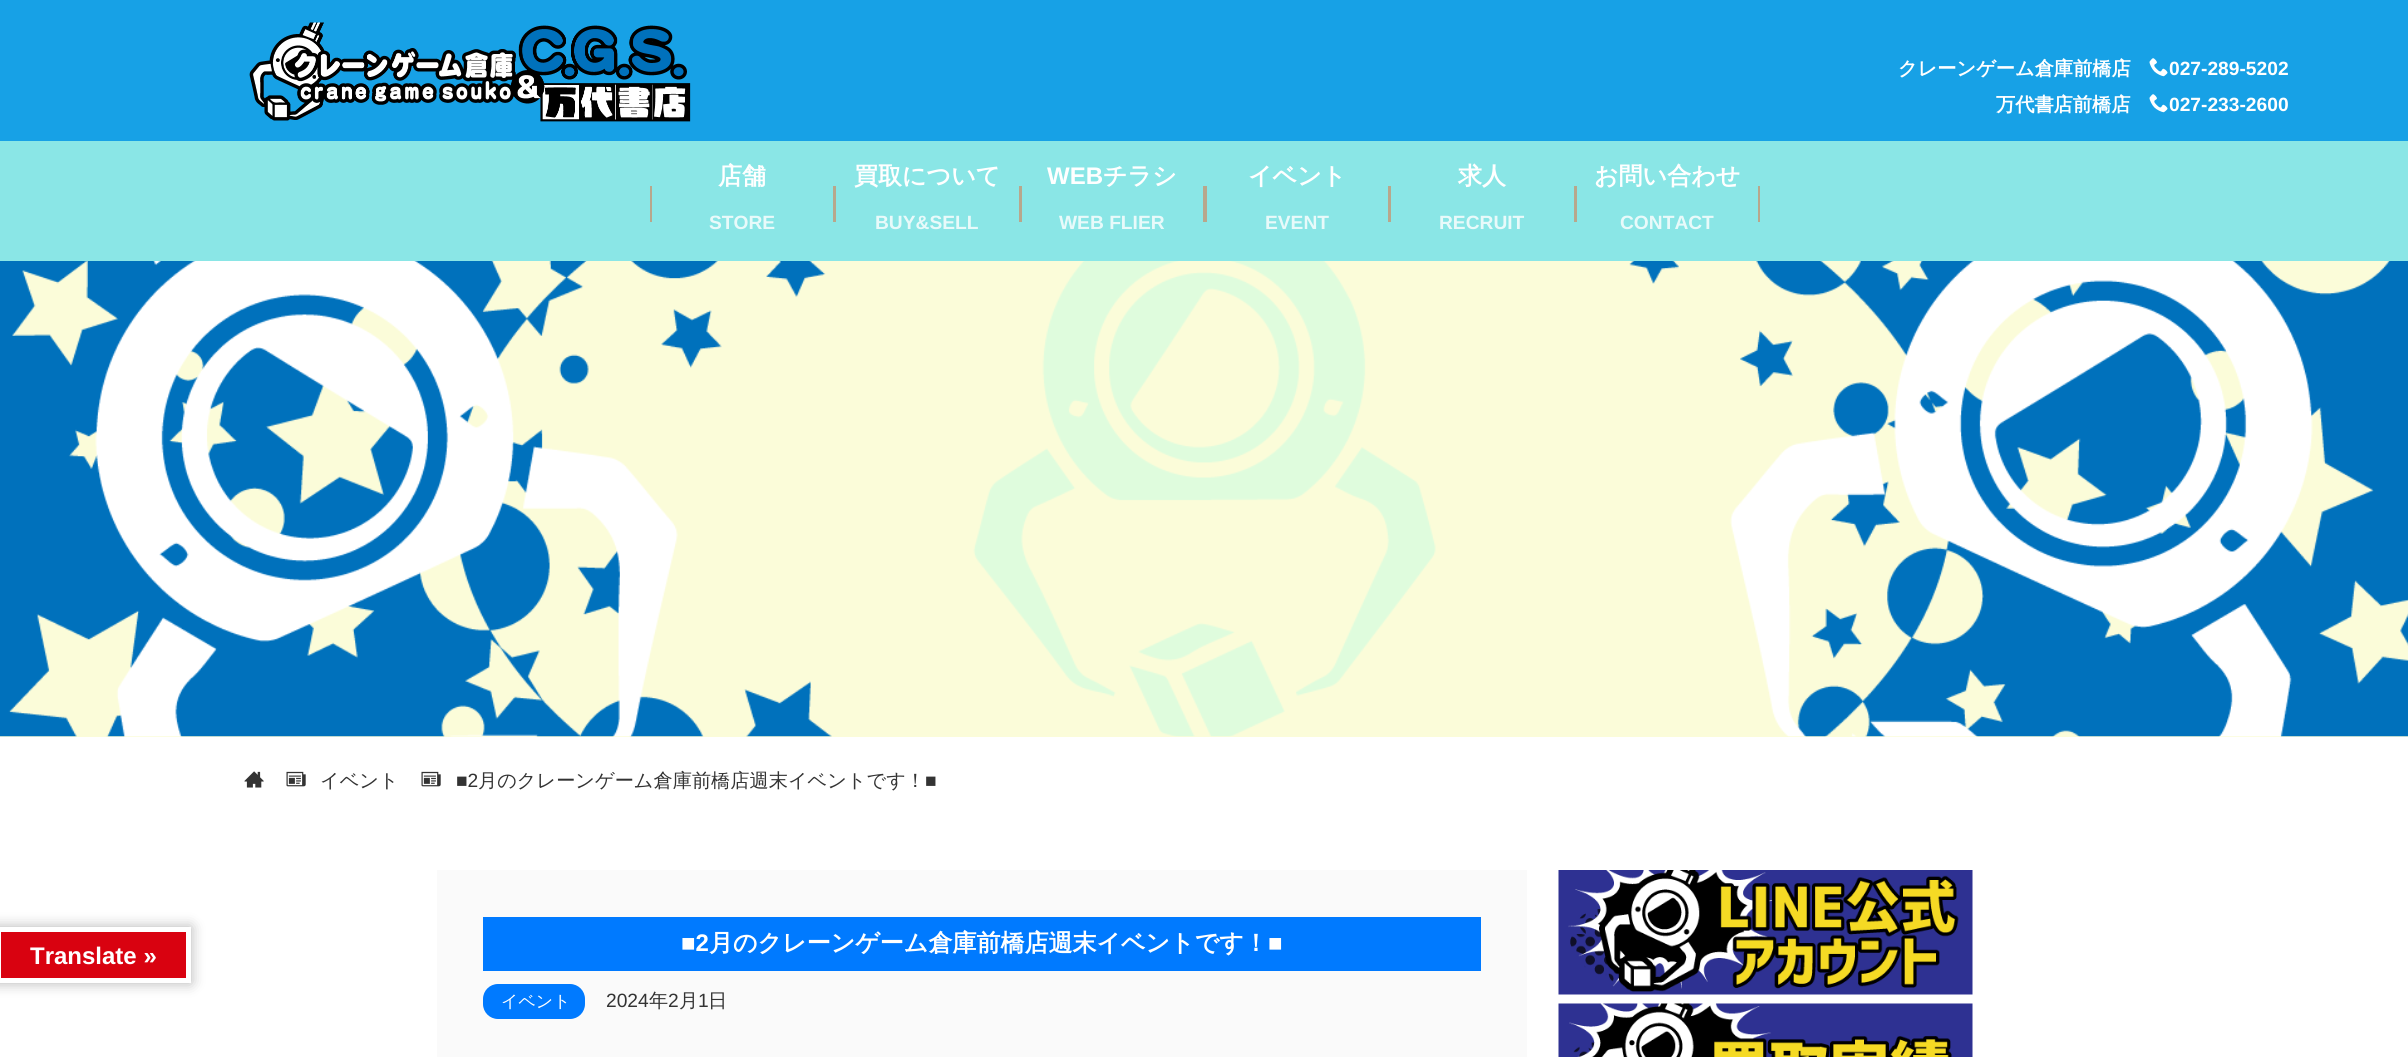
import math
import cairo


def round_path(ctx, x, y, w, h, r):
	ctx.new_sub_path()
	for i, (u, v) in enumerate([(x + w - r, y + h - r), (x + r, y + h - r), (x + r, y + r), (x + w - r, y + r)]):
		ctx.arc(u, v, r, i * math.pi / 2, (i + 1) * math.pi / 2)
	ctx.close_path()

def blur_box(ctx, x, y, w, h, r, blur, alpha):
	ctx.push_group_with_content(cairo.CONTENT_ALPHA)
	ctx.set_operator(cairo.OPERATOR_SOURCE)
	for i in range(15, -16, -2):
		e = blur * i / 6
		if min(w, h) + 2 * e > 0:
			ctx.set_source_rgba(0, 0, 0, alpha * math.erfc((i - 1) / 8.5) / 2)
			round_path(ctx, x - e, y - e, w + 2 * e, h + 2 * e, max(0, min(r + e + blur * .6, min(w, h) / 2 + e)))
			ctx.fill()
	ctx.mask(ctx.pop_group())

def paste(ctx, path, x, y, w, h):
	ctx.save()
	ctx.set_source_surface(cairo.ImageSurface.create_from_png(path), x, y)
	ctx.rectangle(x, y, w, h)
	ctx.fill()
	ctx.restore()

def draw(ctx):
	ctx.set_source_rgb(1, 1, 1)
	ctx.paint()
	ctx.set_source_rgb(0.09, 0.631, 0.902)
	ctx.rectangle(0, 0, 2408, 141)
	ctx.fill()
	paste(ctx, 'media/1.png', 249, 22, 442, 100)
	ctx.select_font_face('WenQuanYi Zen Hei', cairo.FONT_SLANT_NORMAL, cairo.FONT_WEIGHT_BOLD)
	ctx.set_font_size(19.2)
	ctx.set_source_rgb(1, 1, 1)
	ctx.move_to(1898, 75)
	ctx.show_text('クレーンゲーム倉庫前橋店')
	paste(ctx, 'media/2.png', 2149, 58, 19, 19)
	ctx.select_font_face('Liberation Sans', cairo.FONT_SLANT_NORMAL, cairo.FONT_WEIGHT_BOLD)
	ctx.move_to(2169, 75)
	ctx.show_text('027-289-5202')
	ctx.select_font_face('WenQuanYi Zen Hei', cairo.FONT_SLANT_NORMAL, cairo.FONT_WEIGHT_BOLD)
	ctx.move_to(1996, 111)
	ctx.show_text('万代書店前橋店')
	paste(ctx, 'media/2.png', 2149, 94, 19, 19)
	ctx.select_font_face('Liberation Sans', cairo.FONT_SLANT_NORMAL, cairo.FONT_WEIGHT_BOLD)
	ctx.move_to(2169, 111)
	ctx.show_text('027-233-2600')
	ctx.set_source_rgb(0.541, 0.902, 0.902)
	ctx.rectangle(0, 141, 2408, 120)
	ctx.fill()
	ctx.set_source_rgb(0.722, 0.655, 0.549)
	ctx.rectangle(650, 186, 2, 36)
	ctx.fill()
	ctx.select_font_face('WenQuanYi Zen Hei', cairo.FONT_SLANT_NORMAL, cairo.FONT_WEIGHT_BOLD)
	ctx.set_font_size(24)
	ctx.set_source_rgb(1, 1, 1)
	ctx.move_to(718, 184)
	ctx.show_text('店舗')
	ctx.select_font_face('Liberation Sans', cairo.FONT_SLANT_NORMAL, cairo.FONT_WEIGHT_BOLD)
	ctx.set_font_size(19.2)
	ctx.set_source_rgb(0.91, 0.98, 0.98)
	ctx.move_to(709, 229)
	ctx.show_text('STORE')
	ctx.set_source_rgb(0.722, 0.655, 0.549)
	ctx.rectangle(833, 186, 3, 36)
	ctx.fill()
	ctx.select_font_face('WenQuanYi Zen Hei', cairo.FONT_SLANT_NORMAL, cairo.FONT_WEIGHT_BOLD)
	ctx.set_font_size(24)
	ctx.set_source_rgb(1, 1, 1)
	ctx.move_to(854, 184)
	ctx.show_text('買取について')
	ctx.select_font_face('Liberation Sans', cairo.FONT_SLANT_NORMAL, cairo.FONT_WEIGHT_BOLD)
	ctx.set_font_size(19.2)
	ctx.set_source_rgb(0.91, 0.98, 0.98)
	ctx.move_to(875, 229)
	ctx.show_text('BUY&SELL')
	ctx.set_source_rgb(0.722, 0.655, 0.549)
	ctx.rectangle(1019, 186, 3, 36)
	ctx.fill()
	ctx.set_font_size(24)
	ctx.set_source_rgb(1, 1, 1)
	ctx.move_to(1047, 184)
	ctx.show_text('WEB')
	ctx.select_font_face('WenQuanYi Zen Hei', cairo.FONT_SLANT_NORMAL, cairo.FONT_WEIGHT_BOLD)
	ctx.move_to(1103, 184)
	ctx.show_text('チラシ')
	ctx.select_font_face('Liberation Sans', cairo.FONT_SLANT_NORMAL, cairo.FONT_WEIGHT_BOLD)
	ctx.set_font_size(19.2)
	ctx.set_source_rgb(0.91, 0.98, 0.98)
	ctx.move_to(1059, 229)
	ctx.show_text('WEB FLIER')
	ctx.set_source_rgb(0.722, 0.655, 0.549)
	ctx.rectangle(1203, 186, 4, 36)
	ctx.fill()
	ctx.select_font_face('WenQuanYi Zen Hei', cairo.FONT_SLANT_NORMAL, cairo.FONT_WEIGHT_BOLD)
	ctx.set_font_size(24)
	ctx.set_source_rgb(1, 1, 1)
	ctx.move_to(1248, 184)
	ctx.show_text('イベント')
	ctx.select_font_face('Liberation Sans', cairo.FONT_SLANT_NORMAL, cairo.FONT_WEIGHT_BOLD)
	ctx.set_font_size(19.2)
	ctx.set_source_rgb(0.91, 0.98, 0.98)
	ctx.move_to(1265, 229)
	ctx.show_text('EVENT')
	ctx.set_source_rgb(0.722, 0.655, 0.549)
	ctx.rectangle(1388, 186, 3, 36)
	ctx.fill()
	ctx.select_font_face('WenQuanYi Zen Hei', cairo.FONT_SLANT_NORMAL, cairo.FONT_WEIGHT_BOLD)
	ctx.set_font_size(24)
	ctx.set_source_rgb(1, 1, 1)
	ctx.move_to(1458, 184)
	ctx.show_text('求人')
	ctx.select_font_face('Liberation Sans', cairo.FONT_SLANT_NORMAL, cairo.FONT_WEIGHT_BOLD)
	ctx.set_font_size(19.2)
	ctx.set_source_rgb(0.91, 0.98, 0.98)
	ctx.move_to(1439, 229)
	ctx.show_text('RECRUIT')
	ctx.set_source_rgb(0.722, 0.655, 0.549)
	ctx.rectangle(1574, 186, 3, 36)
	ctx.fill()
	ctx.select_font_face('WenQuanYi Zen Hei', cairo.FONT_SLANT_NORMAL, cairo.FONT_WEIGHT_BOLD)
	ctx.set_font_size(24)
	ctx.set_source_rgb(1, 1, 1)
	ctx.move_to(1594, 184)
	ctx.show_text('お問い合わせ')
	ctx.select_font_face('Liberation Sans', cairo.FONT_SLANT_NORMAL, cairo.FONT_WEIGHT_BOLD)
	ctx.set_font_size(19.2)
	ctx.set_source_rgb(0.91, 0.98, 0.98)
	ctx.move_to(1620, 229)
	ctx.show_text('CONTACT')
	ctx.set_source_rgb(0.722, 0.655, 0.549)
	ctx.rectangle(1758, 186, 2, 36)
	ctx.fill()
	ctx.set_source_rgb(0.984, 0.988, 0.851)
	ctx.rectangle(0, 261, 2408, 476)
	ctx.fill()
	paste(ctx, 'media/3.png', 0, 261, 2408, 476)
	paste(ctx, 'media/4.png', 244, 771, 20, 17)
	paste(ctx, 'media/5.png', 286, 771, 20, 16)
	ctx.select_font_face('WenQuanYi Zen Hei Medium')
	ctx.set_source_rgb(0.2, 0.2, 0.2)
	ctx.move_to(320, 787)
	ctx.show_text('イベント')
	paste(ctx, 'media/5.png', 421, 771, 20, 16)
	ctx.select_font_face('Liberation Sans')
	ctx.move_to(456, 787)
	ctx.show_text('■2')
	ctx.select_font_face('WenQuanYi Zen Hei Medium')
	ctx.move_to(478, 787)
	ctx.show_text('月のクレーンゲーム倉庫前橋店週末イベントです！')
	ctx.select_font_face('Liberation Sans')
	ctx.move_to(925, 787)
	ctx.show_text('■')
	ctx.set_source_rgb(0, 0, 0)
	blur_box(ctx, -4, 927, 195, 56, 0, 7, 0.3)
	ctx.set_source_rgb(0.851, 0.008, 0.063)
	ctx.rectangle(-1.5, 929.5, 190, 51)
	ctx.fill_preserve()
	ctx.set_source_rgb(1, 1, 1)
	ctx.set_line_width(5)
	ctx.stroke()
	ctx.select_font_face('Liberation Sans', cairo.FONT_SLANT_NORMAL, cairo.FONT_WEIGHT_BOLD)
	ctx.set_font_size(24)
	ctx.move_to(30, 964)
	ctx.show_text('Translate »')
	ctx.set_source_rgb(0.98, 0.98, 0.98)
	ctx.rectangle(437, 870, 1090, 187)
	ctx.fill()
	ctx.set_source_rgb(0, 0.478, 1)
	ctx.rectangle(483, 917, 998, 54)
	ctx.fill()
	ctx.set_source_rgb(1, 1, 1)
	ctx.move_to(681, 951)
	ctx.show_text('■2')
	ctx.select_font_face('WenQuanYi Zen Hei', cairo.FONT_SLANT_NORMAL, cairo.FONT_WEIGHT_BOLD)
	ctx.move_to(709, 951)
	ctx.show_text('月のクレーンゲーム倉庫前橋店週末イベントです！')
	ctx.select_font_face('Liberation Sans', cairo.FONT_SLANT_NORMAL, cairo.FONT_WEIGHT_BOLD)
	ctx.move_to(1268, 951)
	ctx.show_text('■')
	ctx.set_source_rgb(0, 0.478, 1)
	round_path(ctx, 483, 984, 102, 35, 15)
	ctx.fill()
	ctx.select_font_face('WenQuanYi Zen Hei Medium')
	ctx.set_font_size(17)
	ctx.set_source_rgb(1, 1, 1)
	ctx.move_to(501, 1007)
	ctx.show_text('イベント')
	ctx.select_font_face('Liberation Sans')
	ctx.set_font_size(19.2)
	ctx.set_source_rgb(0.2, 0.2, 0.2)
	ctx.move_to(606, 1007)
	ctx.show_text('2024')
	ctx.select_font_face('WenQuanYi Zen Hei Medium')
	ctx.move_to(649, 1007)
	ctx.show_text('年')
	ctx.select_font_face('Liberation Sans')
	ctx.move_to(668, 1007)
	ctx.show_text('2')
	ctx.select_font_face('WenQuanYi Zen Hei Medium')
	ctx.move_to(679, 1007)
	ctx.show_text('月')
	ctx.select_font_face('Liberation Sans')
	ctx.move_to(698, 1007)
	ctx.show_text('1')
	ctx.select_font_face('WenQuanYi Zen Hei Medium')
	ctx.move_to(708, 1007)
	ctx.show_text('日')
	paste(ctx, 'media/6.png', 1558, 870, 415, 125)
	paste(ctx, 'media/7.png', 1558, 1003, 415, 54)


surface = cairo.ImageSurface(cairo.FORMAT_RGB24, 2408, 1057)
ctx = cairo.Context(surface)
options = cairo.FontOptions()
options.set_hint_metrics(cairo.HINT_METRICS_OFF)
options.set_hint_style(cairo.HINT_STYLE_NONE)
ctx.set_font_options(options)
ctx.set_miter_limit(4)
draw(ctx)
surface.write_to_png('image.png')
